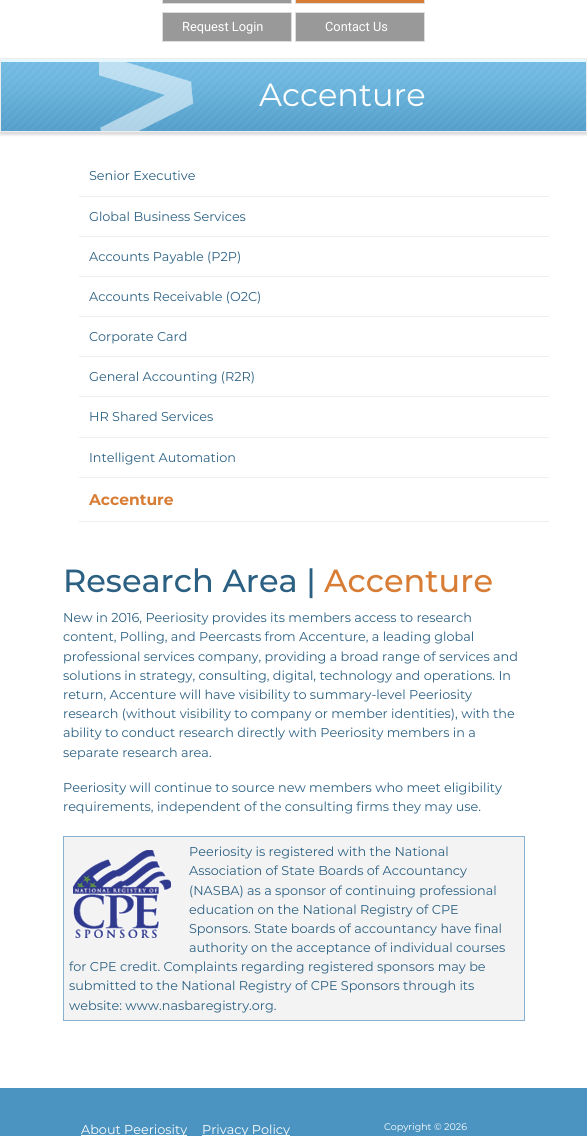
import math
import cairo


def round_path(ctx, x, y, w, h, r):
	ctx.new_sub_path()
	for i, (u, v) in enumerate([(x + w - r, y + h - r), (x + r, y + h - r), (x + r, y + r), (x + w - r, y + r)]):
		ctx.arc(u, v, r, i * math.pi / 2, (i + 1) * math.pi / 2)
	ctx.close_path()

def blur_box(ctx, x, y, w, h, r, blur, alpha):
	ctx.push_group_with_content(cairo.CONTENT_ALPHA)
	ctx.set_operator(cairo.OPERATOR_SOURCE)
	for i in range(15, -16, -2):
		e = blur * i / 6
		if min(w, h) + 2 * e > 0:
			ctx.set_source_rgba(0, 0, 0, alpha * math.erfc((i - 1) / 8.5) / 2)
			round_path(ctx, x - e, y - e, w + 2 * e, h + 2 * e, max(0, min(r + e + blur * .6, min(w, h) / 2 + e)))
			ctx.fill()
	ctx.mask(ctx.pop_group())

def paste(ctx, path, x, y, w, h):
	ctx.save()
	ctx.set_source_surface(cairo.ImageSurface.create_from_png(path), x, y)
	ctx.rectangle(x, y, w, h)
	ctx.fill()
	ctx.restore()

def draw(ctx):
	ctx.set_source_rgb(1, 1, 1)
	ctx.paint()
	ctx.set_source_rgb(0.6, 0.6, 0.6)
	ctx.rectangle(162.5, -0.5, 129, 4)
	ctx.fill_preserve()
	ctx.set_source_rgb(0.867, 0.867, 0.867)
	ctx.set_line_width(1)
	ctx.stroke()
	ctx.set_source_rgb(0.847, 0.49, 0.208)
	ctx.rectangle(295.5, -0.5, 129, 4)
	ctx.fill_preserve()
	ctx.set_source_rgb(0.867, 0.867, 0.867)
	ctx.stroke()
	ctx.set_source_rgb(0.6, 0.6, 0.6)
	ctx.rectangle(162.5, 12.5, 129, 29)
	ctx.fill_preserve()
	ctx.set_source_rgb(0.867, 0.867, 0.867)
	ctx.stroke()
	ctx.select_font_face('Roboto')
	ctx.set_font_size(12.8)
	ctx.set_source_rgb(1, 1, 1)
	ctx.move_to(182, 31)
	ctx.show_text('Request Login')
	ctx.set_source_rgb(0.6, 0.6, 0.6)
	ctx.rectangle(295.5, 12.5, 129, 29)
	ctx.fill_preserve()
	ctx.set_source_rgb(0.867, 0.867, 0.867)
	ctx.stroke()
	ctx.set_source_rgb(1, 1, 1)
	ctx.move_to(325, 31)
	ctx.show_text('Contact Us')
	ctx.set_source_rgb(0.867, 0.867, 0.867)
	blur_box(ctx, 0, 61, 587, 74, 0, 1, 1)
	paste(ctx, 'media/1.png', 1, 59, 585, 72)
	ctx.rectangle(0.5, 58.5, 586, 73)
	ctx.set_source_rgb(0.933, 0.933, 0.933)
	ctx.stroke()
	paste(ctx, 'media/2.png', 99, 62, 95, 69)
	ctx.select_font_face('Montserrat')
	ctx.set_font_size(32)
	ctx.set_source_rgb(1, 1, 1)
	ctx.move_to(259, 106)
	ctx.show_text('Accenture')
	ctx.set_source_rgb(0.933, 0.933, 0.933)
	ctx.rectangle(79, 196, 470, 1)
	ctx.fill()
	ctx.set_font_size(12.8)
	ctx.set_source_rgb(0.173, 0.376, 0.51)
	ctx.move_to(89, 180)
	ctx.show_text('Senior Executive')
	ctx.set_source_rgb(0.933, 0.933, 0.933)
	ctx.rectangle(79, 236, 470, 1)
	ctx.fill()
	ctx.set_source_rgb(0.173, 0.376, 0.51)
	ctx.move_to(89, 221)
	ctx.show_text('Global Business Services')
	ctx.set_source_rgb(0.933, 0.933, 0.933)
	ctx.rectangle(79, 276, 470, 1)
	ctx.fill()
	ctx.set_source_rgb(0.173, 0.376, 0.51)
	ctx.move_to(89, 261)
	ctx.show_text('Accounts Payable (P2P)')
	ctx.set_source_rgb(0.933, 0.933, 0.933)
	ctx.rectangle(79, 316, 470, 1)
	ctx.fill()
	ctx.set_source_rgb(0.173, 0.376, 0.51)
	ctx.move_to(89, 301)
	ctx.show_text('Accounts Receivable (O2C)')
	ctx.set_source_rgb(0.933, 0.933, 0.933)
	ctx.rectangle(79, 356, 470, 1)
	ctx.fill()
	ctx.set_source_rgb(0.173, 0.376, 0.51)
	ctx.move_to(89, 341)
	ctx.show_text('Corporate Card')
	ctx.set_source_rgb(0.933, 0.933, 0.933)
	ctx.rectangle(79, 396, 470, 1)
	ctx.fill()
	ctx.set_source_rgb(0.173, 0.376, 0.51)
	ctx.move_to(89, 381)
	ctx.show_text('General Accounting (R2R)')
	ctx.set_source_rgb(0.933, 0.933, 0.933)
	ctx.rectangle(79, 437, 470, 1)
	ctx.fill()
	ctx.set_source_rgb(0.173, 0.376, 0.51)
	ctx.move_to(89, 421)
	ctx.show_text('HR Shared Services')
	ctx.set_source_rgb(0.933, 0.933, 0.933)
	ctx.rectangle(79, 477, 470, 1)
	ctx.fill()
	ctx.set_source_rgb(0.173, 0.376, 0.51)
	ctx.move_to(89, 462)
	ctx.show_text('Intelligent Automation')
	ctx.set_source_rgb(0.933, 0.933, 0.933)
	ctx.rectangle(79, 521, 470, 1)
	ctx.fill()
	ctx.select_font_face('Montserrat', cairo.FONT_SLANT_NORMAL, cairo.FONT_WEIGHT_BOLD)
	ctx.set_font_size(15.5)
	ctx.set_source_rgb(0.847, 0.49, 0.208)
	ctx.move_to(89, 505)
	ctx.show_text('Accenture')
	ctx.select_font_face('Montserrat Medium')
	ctx.set_font_size(32)
	ctx.set_source_rgb(0.173, 0.376, 0.51)
	ctx.move_to(63, 592)
	ctx.show_text('Research Area |')
	ctx.set_source_rgb(0.847, 0.49, 0.208)
	ctx.move_to(324, 592)
	ctx.show_text('Accenture')
	ctx.select_font_face('Montserrat')
	ctx.set_font_size(12.8)
	ctx.set_source_rgb(0.173, 0.376, 0.51)
	for x, y, s in [
		(63, 622, 'New in 2016, Peeriosity provides its members access to research'),
		(63, 641, 'content, Polling, and Peercasts from Accenture, a leading global'),
		(63, 661, 'professional services company, providing a broad range of services and'),
		(63, 680, 'solutions in strategy, consulting, digital, technology and operations. In'),
		(63, 699, 'return, Accenture will have visibility to summary-level Peeriosity'),
		(63, 718, 'research (without visibility to company or member identities), with the'),
		(63, 737, 'ability to conduct research directly with Peeriosity members in a'),
		(63, 757, 'separate research area.'),
		(63, 792, 'Peeriosity will continue to source new members who meet eligibility'),
		(63, 811, 'requirements, independent of the consulting firms they may use.'),
	]:
		ctx.move_to(x, y)
		ctx.show_text(s)
	ctx.set_source_rgb(0.953, 0.953, 0.953)
	ctx.rectangle(63.5, 836.5, 461, 184)
	ctx.fill_preserve()
	ctx.set_source_rgb(0.529, 0.694, 0.816)
	ctx.stroke()
	ctx.set_source_rgb(0.173, 0.376, 0.51)
	for x, y, s in [
		(189, 856, 'Peeriosity is registered with the National'),
		(189, 875, 'Association of State Boards of Accountancy'),
		(189, 895, '(NASBA) as a sponsor of continuing professional'),
		(189, 914, 'education on the National Registry of CPE'),
		(189, 933, 'Sponsors. State boards of accountancy have final'),
		(189, 952, 'authority on the acceptance of individual courses'),
		(69, 971, 'for CPE credit. Complaints regarding registered sponsors may be'),
		(69, 990, 'submitted to the National Registry of CPE Sponsors through its'),
		(69, 1010, 'website: www.nasbaregistry.org.'),
	]:
		ctx.move_to(x, y)
		ctx.show_text(s)
	paste(ctx, 'media/3.png', 73, 850, 98, 88)
	ctx.set_source_rgb(0.294, 0.58, 0.757)
	ctx.rectangle(0, 1088, 587, 48)
	ctx.fill()
	ctx.set_source_rgb(1, 1, 1)
	ctx.rectangle(81, 1135, 106, 1)
	ctx.fill()
	ctx.move_to(81, 1134)
	ctx.show_text('About Peeriosity')
	ctx.rectangle(202, 1135, 88, 1)
	ctx.fill()
	ctx.move_to(202, 1134)
	ctx.show_text('Privacy Policy')
	ctx.set_font_size(9.5)
	ctx.move_to(384, 1130)
	ctx.show_text('Copyright © 2026')


surface = cairo.ImageSurface(cairo.FORMAT_RGB24, 587, 1136)
ctx = cairo.Context(surface)
options = cairo.FontOptions()
options.set_hint_metrics(cairo.HINT_METRICS_OFF)
options.set_hint_style(cairo.HINT_STYLE_NONE)
ctx.set_font_options(options)
ctx.set_miter_limit(4)
draw(ctx)
surface.write_to_png('image.png')
